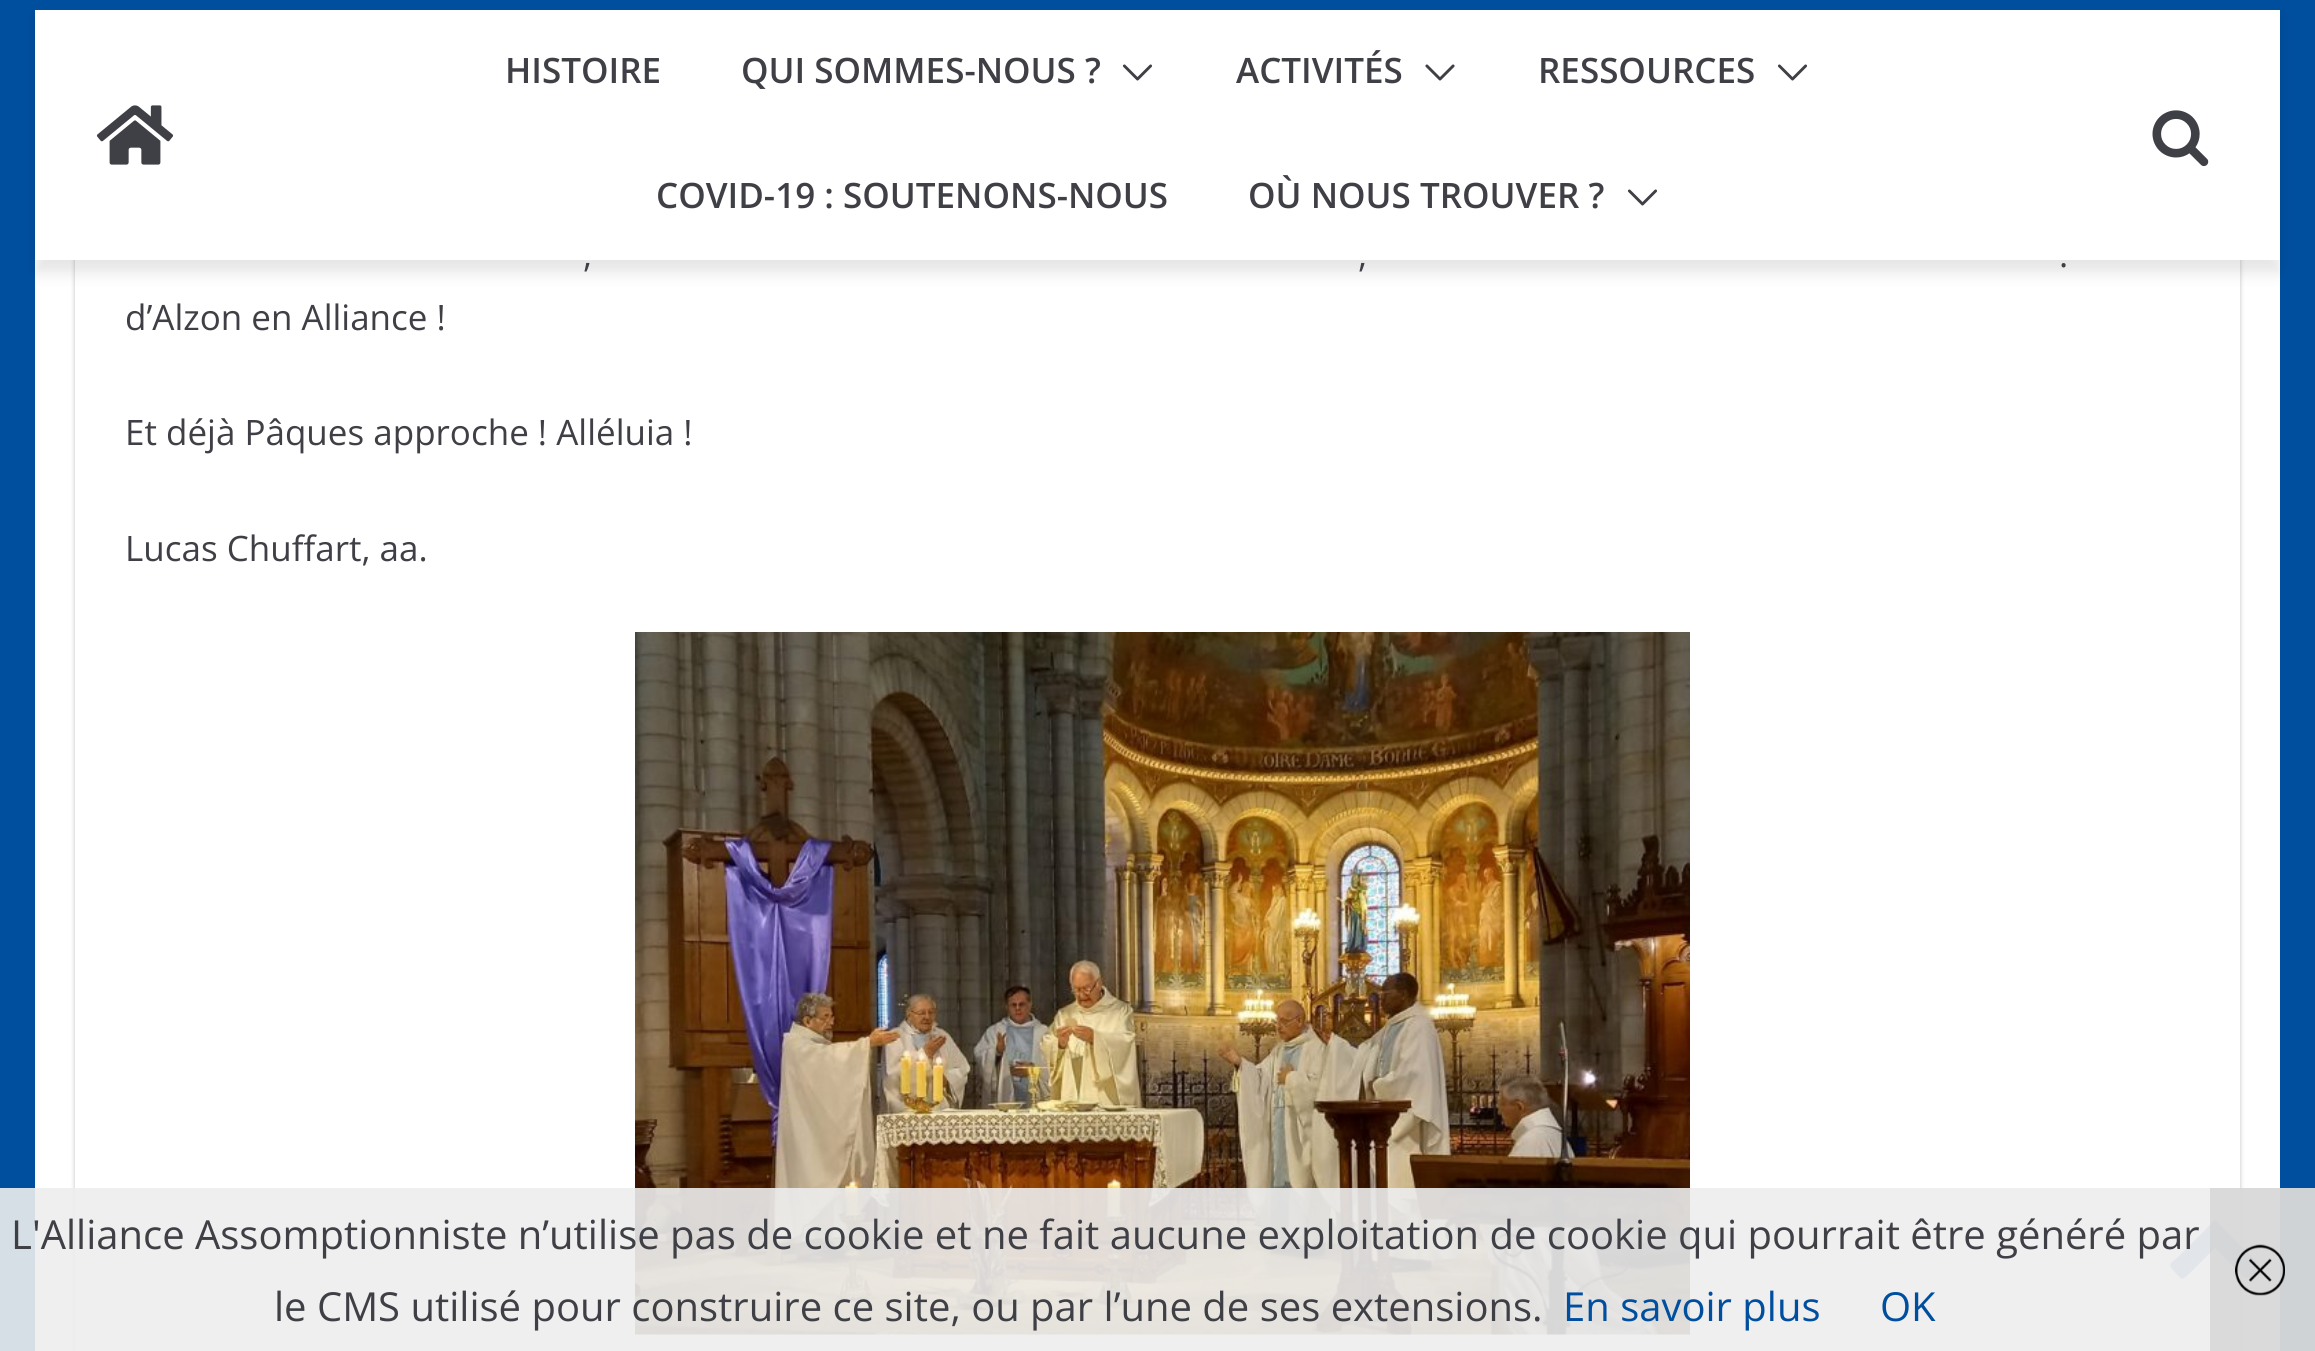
import math
import cairo


def round_path(ctx, x, y, w, h, r):
	ctx.new_sub_path()
	for i, (u, v) in enumerate([(x + w - r, y + h - r), (x + r, y + h - r), (x + r, y + r), (x + w - r, y + r)]):
		ctx.arc(u, v, r, i * math.pi / 2, (i + 1) * math.pi / 2)
	ctx.close_path()

def blur_box(ctx, x, y, w, h, r, blur, alpha):
	ctx.push_group_with_content(cairo.CONTENT_ALPHA)
	ctx.set_operator(cairo.OPERATOR_SOURCE)
	for i in range(15, -16, -2):
		e = blur * i / 6
		if min(w, h) + 2 * e > 0:
			ctx.set_source_rgba(0, 0, 0, alpha * math.erfc((i - 1) / 8.5) / 2)
			round_path(ctx, x - e, y - e, w + 2 * e, h + 2 * e, max(0, min(r + e + blur * .6, min(w, h) / 2 + e)))
			ctx.fill()
	ctx.mask(ctx.pop_group())

def paste(ctx, path, x, y, w, h):
	ctx.save()
	ctx.set_source_surface(cairo.ImageSurface.create_from_png(path), x, y)
	ctx.rectangle(x, y, w, h)
	ctx.fill()
	ctx.restore()

def draw(ctx):
	ctx.set_source_rgb(0, 0.31, 0.624)
	ctx.paint()
	ctx.set_source_rgb(1, 1, 1)
	ctx.rectangle(35, 260, 2245, 1091)
	ctx.fill()
	ctx.set_source_rgb(0, 0, 0)
	blur_box(ctx, 35, 13, 2245, 260, 0, 7.5, 0.1)
	ctx.save()
	ctx.set_fill_rule(cairo.FILL_RULE_EVEN_ODD)
	ctx.new_path()
	ctx.move_to(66, 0)
	ctx.line_to(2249, 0)
	ctx.line_to(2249, 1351)
	ctx.line_to(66, 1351)
	ctx.close_path()
	ctx.move_to(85, -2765)
	ctx.line_to(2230, -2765)
	ctx.curve_to(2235.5, -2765, 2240, -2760.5, 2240, -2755)
	ctx.line_to(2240, 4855)
	ctx.curve_to(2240, 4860.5, 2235.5, 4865, 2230, 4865)
	ctx.line_to(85, 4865)
	ctx.curve_to(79.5, 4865, 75, 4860.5, 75, 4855)
	ctx.line_to(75, -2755)
	ctx.curve_to(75, -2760.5, 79.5, -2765, 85, -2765)
	ctx.close_path()
	ctx.clip()
	blur_box(ctx, 75, -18, 2165, 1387, 10, 2.5, 0.24)
	ctx.restore()
	ctx.set_source_rgb(1, 1, 1)
	ctx.rectangle(35, 10, 2245, 250)
	ctx.fill()
	ctx.set_source_rgb(0, 0.31, 0.624)
	ctx.rectangle(35, 0, 2245, 10)
	ctx.fill()
	paste(ctx, 'media/1.png', 96, 105, 78, 60)
	ctx.select_font_face('Open Sans SemiBold')
	ctx.set_font_size(35)
	ctx.set_source_rgb(0.247, 0.247, 0.275)
	ctx.move_to(505, 83)
	ctx.show_text('HISTOIRE')
	ctx.move_to(741, 83)
	ctx.show_text('QUI SOMMES-NOUS ?')
	paste(ctx, 'media/2.png', 1122, 64, 30, 17)
	ctx.move_to(1236, 83)
	ctx.show_text('ACTIVITÉS')
	paste(ctx, 'media/3.png', 1425, 64, 30, 17)
	ctx.move_to(1538, 83)
	ctx.show_text('RESSOURCES')
	paste(ctx, 'media/2.png', 1777, 64, 30, 17)
	ctx.move_to(656, 208)
	ctx.show_text('COVID-19 : SOUTENONS-NOUS')
	ctx.move_to(1248, 208)
	ctx.show_text('OÙ NOUS TROUVER ?')
	paste(ctx, 'media/2.png', 1627, 189, 30, 17)
	paste(ctx, 'media/4.png', 2152, 110, 57, 57)
	ctx.select_font_face('Open Sans')
	for x, y, s in [
		(583, 267, ','),
		(1358, 267, ','),
		(2059, 267, '.'),
		(125, 330, 'd’Alzon en Alliance !'),
		(125, 445, 'Et déjà Pâques approche ! Alléluia !'),
		(125, 561, 'Lucas Chuffart, aa.'),
	]:
		ctx.move_to(x, y)
		ctx.show_text(s)
	paste(ctx, 'media/5.png', 635, 632, 1055, 703)
	ctx.set_source_rgba(0, 0.31, 0.624, 0.5)
	ctx.new_path()
	ctx.move_to(2259, 1269)
	ctx.line_to(2251, 1276)
	ctx.curve_to(2246, 1281, 2245, 1278, 2240, 1273)
	ctx.line_to(2215, 1248)
	ctx.line_to(2190, 1273)
	ctx.curve_to(2181, 1282, 2182, 1280, 2173, 1270)
	ctx.curve_to(2167, 1264, 2172, 1262, 2178, 1257)
	ctx.line_to(2206, 1229)
	ctx.curve_to(2216, 1218, 2214, 1218, 2224, 1229)
	ctx.line_to(2252, 1257)
	ctx.curve_to(2253, 1258, 2263, 1264, 2259, 1269)
	ctx.close_path()
	ctx.fill()
	ctx.set_source_rgba(0.933, 0.933, 0.933, 0.9)
	ctx.rectangle(0, 1188, 2315, 163)
	ctx.fill()
	ctx.set_font_size(40)
	ctx.set_source_rgb(0.247, 0.247, 0.275)
	ctx.move_to(11, 1249)
	ctx.show_text('L\'Alliance Assomptionniste n’utilise pas de cookie et ne fait aucune exploitation de cookie qui pourrait être généré par')
	ctx.move_to(274, 1321)
	ctx.show_text('le CMS utilisé pour construire ce site, ou par l’une de ses extensions.')
	ctx.set_source_rgb(0, 0.31, 0.624)
	ctx.move_to(1563, 1321)
	ctx.show_text('En savoir plus')
	ctx.move_to(1880, 1321)
	ctx.show_text('OK')
	ctx.set_source_rgba(0.8, 0.8, 0.8, 0.6)
	ctx.rectangle(2210, 1188, 105, 163)
	ctx.fill()
	paste(ctx, 'media/6.png', 2235, 1244, 50, 52)


surface = cairo.ImageSurface(cairo.FORMAT_RGB24, 2315, 1351)
ctx = cairo.Context(surface)
options = cairo.FontOptions()
options.set_hint_metrics(cairo.HINT_METRICS_OFF)
options.set_hint_style(cairo.HINT_STYLE_NONE)
ctx.set_font_options(options)
ctx.set_miter_limit(4)
draw(ctx)
surface.write_to_png('image.png')
